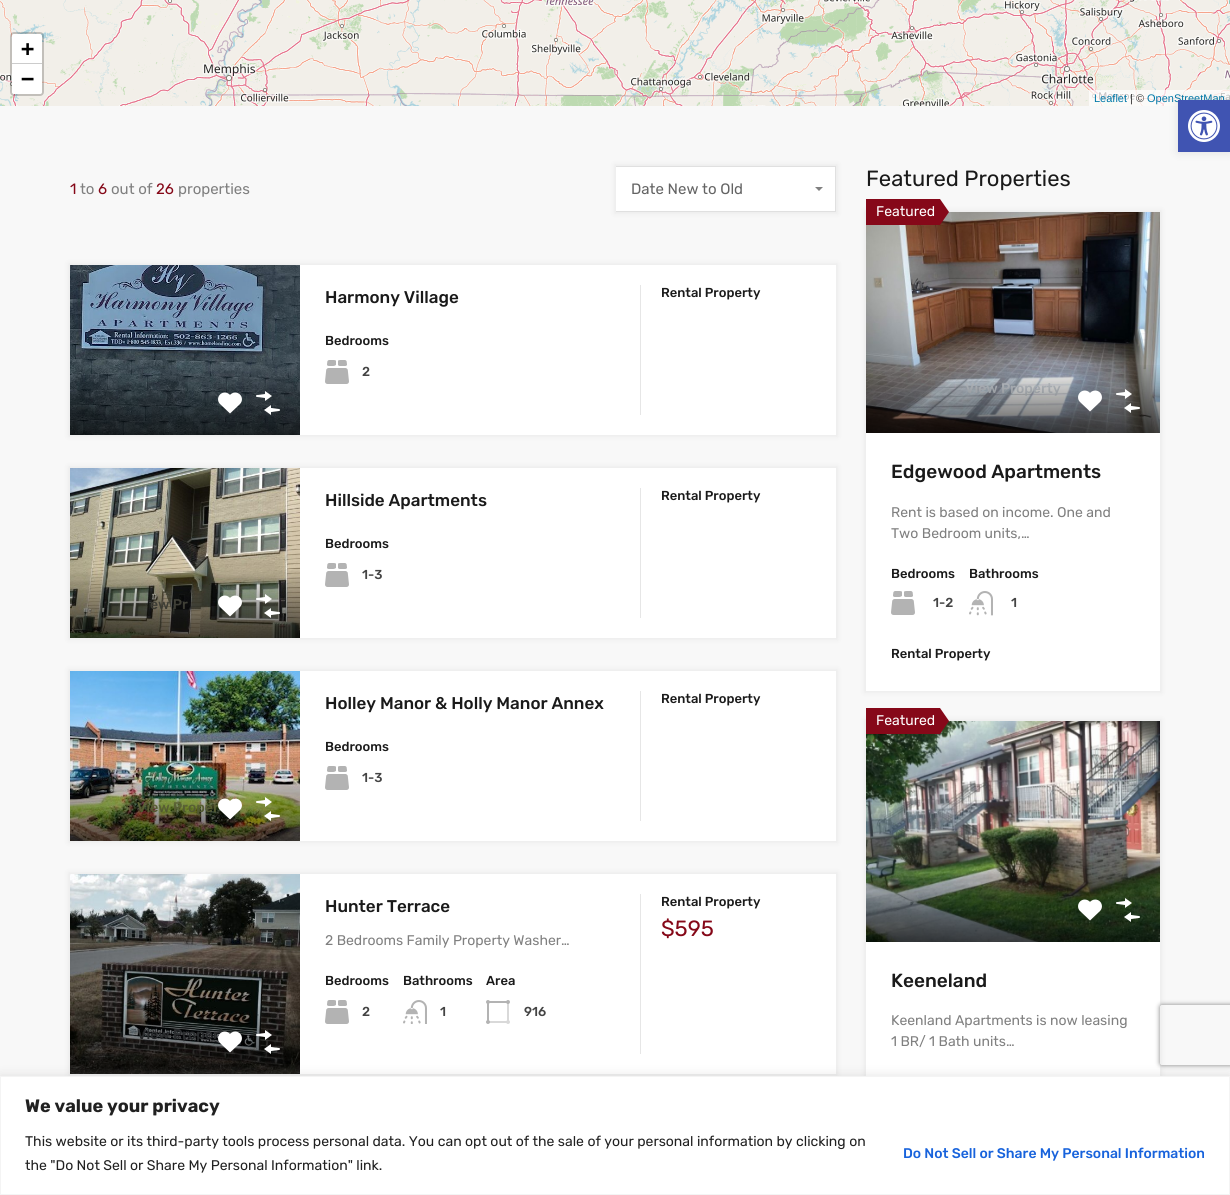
import math
import cairo


def round_path(ctx, x, y, w, h, r):
	ctx.new_sub_path()
	for i, (u, v) in enumerate([(x + w - r, y + h - r), (x + r, y + h - r), (x + r, y + r), (x + w - r, y + r)]):
		ctx.arc(u, v, r, i * math.pi / 2, (i + 1) * math.pi / 2)
	ctx.close_path()

def blur_box(ctx, x, y, w, h, r, blur, alpha):
	ctx.push_group_with_content(cairo.CONTENT_ALPHA)
	ctx.set_operator(cairo.OPERATOR_SOURCE)
	for i in range(15, -16, -2):
		e = blur * i / 6
		if min(w, h) + 2 * e > 0:
			ctx.set_source_rgba(0, 0, 0, alpha * math.erfc((i - 1) / 8.5) / 2)
			round_path(ctx, x - e, y - e, w + 2 * e, h + 2 * e, max(0, min(r + e + blur * .6, min(w, h) / 2 + e)))
			ctx.fill()
	ctx.mask(ctx.pop_group())

def paste(ctx, path, x, y, w, h):
	ctx.save()
	ctx.set_source_surface(cairo.ImageSurface.create_from_png(path), x, y)
	ctx.rectangle(x, y, w, h)
	ctx.fill()
	ctx.restore()

def draw(ctx):
	ctx.set_source_rgb(0.969, 0.969, 0.969)
	ctx.paint()
	paste(ctx, 'media/5.png', 1002, 0, 228, 106)
	ctx.new_path()
	ctx.move_to(1229.5, 2)
	ctx.line_to(1230, 2)
	ctx.set_source_rgb(0.118, 0.651, 0.604)
	ctx.set_line_width(3.7)
	ctx.stroke()
	paste(ctx, 'media/1.png', 0, 0, 234, 106)
	paste(ctx, 'media/2.png', 234, 0, 256, 106)
	paste(ctx, 'media/3.png', 490, 0, 256, 106)
	paste(ctx, 'media/4.png', 746, 0, 256, 106)
	round_path(ctx, 11, 33, 32, 62, 3)
	ctx.set_source_rgba(0, 0, 0, 0.2)
	ctx.set_line_width(2)
	ctx.stroke()
	ctx.set_source_rgb(1, 1, 1)
	ctx.new_path()
	ctx.move_to(14, 34)
	ctx.line_to(40, 34)
	ctx.curve_to(41, 34, 42, 35, 42, 36)
	ctx.line_to(42, 63)
	ctx.line_to(12, 63)
	ctx.line_to(12, 36)
	ctx.curve_to(12, 35, 13, 34, 14, 34)
	ctx.close_path()
	ctx.fill()
	ctx.set_source_rgb(0.8, 0.8, 0.8)
	ctx.rectangle(12, 63, 30, 1)
	ctx.fill()
	ctx.select_font_face('DejaVu Sans Mono', cairo.FONT_SLANT_NORMAL, cairo.FONT_WEIGHT_BOLD)
	ctx.set_font_size(22)
	ctx.set_source_rgb(0, 0, 0)
	ctx.move_to(21, 56)
	ctx.show_text('+')
	ctx.set_source_rgb(1, 1, 1)
	ctx.new_path()
	ctx.move_to(12, 64)
	ctx.line_to(42, 64)
	ctx.line_to(42, 92)
	ctx.curve_to(42, 93, 41, 94, 40, 94)
	ctx.line_to(14, 94)
	ctx.curve_to(13, 94, 12, 93, 12, 92)
	ctx.close_path()
	ctx.fill()
	ctx.set_source_rgb(0, 0, 0)
	ctx.move_to(21, 86)
	ctx.show_text('−')
	ctx.set_source_rgba(1, 1, 1, 0.7)
	ctx.rectangle(1089, 90, 141, 16)
	ctx.fill()
	ctx.select_font_face('Liberation Sans')
	ctx.set_font_size(11)
	ctx.set_source_rgb(0, 0.471, 0.659)
	ctx.move_to(1094, 102)
	ctx.show_text('Leaflet')
	ctx.set_source_rgb(0.2, 0.2, 0.2)
	ctx.move_to(1130, 102)
	ctx.show_text('| ©')
	ctx.set_source_rgb(0, 0.471, 0.659)
	ctx.move_to(1147, 102)
	ctx.show_text('OpenStreetMap')
	ctx.select_font_face('Rubik')
	ctx.set_font_size(15)
	ctx.set_source_rgb(0.522, 0.035, 0.094)
	ctx.move_to(70, 194)
	ctx.show_text('1')
	ctx.set_source_rgb(0.502, 0.502, 0.502)
	ctx.move_to(80, 194)
	ctx.show_text('to')
	ctx.set_source_rgb(0.522, 0.035, 0.094)
	ctx.move_to(98, 194)
	ctx.show_text('6')
	ctx.set_source_rgb(0.502, 0.502, 0.502)
	ctx.move_to(111, 194)
	ctx.show_text('out of')
	ctx.set_source_rgb(0.522, 0.035, 0.094)
	ctx.move_to(156, 194)
	ctx.show_text('26')
	ctx.set_source_rgb(0.502, 0.502, 0.502)
	ctx.move_to(178, 194)
	ctx.show_text('properties')
	ctx.set_source_rgb(0, 0, 0)
	blur_box(ctx, 614, 164, 224, 50, 0, 2.5, 0.05)
	ctx.set_source_rgb(1, 1, 1)
	ctx.rectangle(616, 167, 219, 44)
	ctx.fill()
	ctx.set_source_rgb(0.878, 0.878, 0.878)
	ctx.rectangle(616, 166, 220, 1)
	ctx.rectangle(835, 166, 1, 46)
	ctx.rectangle(616, 211, 220, 1)
	ctx.fill()
	ctx.set_source_rgb(0.392, 0.392, 0.392)
	ctx.move_to(631, 194)
	ctx.show_text('Date New to Old')
	ctx.set_source_rgb(0.502, 0.502, 0.502)
	ctx.new_path()
	ctx.move_to(815, 187)
	ctx.line_to(823, 187)
	ctx.line_to(819, 191)
	ctx.close_path()
	ctx.fill()
	ctx.set_source_rgb(0, 0, 0)
	blur_box(ctx, 68, 263, 770, 174, 0, 2.5, 0.05)
	paste(ctx, 'media/6.png', 70, 265, 230, 170)
	gradient = cairo.LinearGradient(185, 365, 185, 435)
	gradient.add_color_stop_rgba(0, 0, 0, 0, 0)
	gradient.add_color_stop_rgba(1, 0, 0, 0, 0.65)
	ctx.set_source(gradient)
	ctx.rectangle(70, 368, 230, 67)
	ctx.fill()
	paste(ctx, 'media/7.png', 218, 392, 24, 22)
	paste(ctx, 'media/8.png', 256, 391, 24, 24)
	ctx.set_source_rgb(1, 1, 1)
	ctx.rectangle(300, 265, 536, 170)
	ctx.fill()
	ctx.set_source_rgb(0.902, 0.902, 0.902)
	ctx.rectangle(640, 285, 1, 130)
	ctx.fill()
	ctx.select_font_face('Rubik Medium')
	ctx.set_font_size(17)
	ctx.set_source_rgb(0.102, 0.102, 0.102)
	ctx.move_to(325, 303)
	ctx.show_text('Harmony Village')
	ctx.set_font_size(13)
	ctx.move_to(325, 345)
	ctx.show_text('Bedrooms')
	paste(ctx, 'media/9.png', 325, 360, 24, 24)
	ctx.set_source_rgb(0.267, 0.267, 0.267)
	ctx.move_to(362, 376)
	ctx.show_text('2')
	ctx.set_source_rgb(0.102, 0.102, 0.102)
	ctx.move_to(661, 297)
	ctx.show_text('Rental Property')
	ctx.set_source_rgb(0, 0, 0)
	blur_box(ctx, 68, 466, 770, 174, 0, 2.5, 0.05)
	ctx.set_source_rgb(1, 1, 1)
	ctx.rectangle(300, 468, 536, 170)
	ctx.fill()
	ctx.set_source_rgb(0.902, 0.902, 0.902)
	ctx.rectangle(640, 488, 1, 130)
	ctx.fill()
	ctx.set_font_size(17)
	ctx.set_source_rgb(0.102, 0.102, 0.102)
	ctx.move_to(325, 506)
	ctx.show_text('Hillside Apartments')
	ctx.set_font_size(13)
	ctx.move_to(325, 548)
	ctx.show_text('Bedrooms')
	paste(ctx, 'media/9.png', 325, 563, 24, 24)
	ctx.set_source_rgb(0.267, 0.267, 0.267)
	ctx.move_to(362, 579)
	ctx.show_text('1-3')
	ctx.set_source_rgb(0.102, 0.102, 0.102)
	ctx.move_to(661, 500)
	ctx.show_text('Rental Property')
	paste(ctx, 'media/10.png', 70, 468, 230, 170)
	ctx.set_font_size(14)
	ctx.set_source_rgb(0.369, 0.369, 0.318)
	ctx.move_to(150, 609)
	ctx.show_text('ew Pr')
	gradient = cairo.LinearGradient(185, 568, 185, 638)
	gradient.add_color_stop_rgba(0, 0, 0, 0, 0)
	gradient.add_color_stop_rgba(1, 0, 0, 0, 0.65)
	ctx.set_source(gradient)
	ctx.rectangle(70, 570, 230, 68)
	ctx.fill()
	paste(ctx, 'media/11.png', 218, 595, 24, 22)
	paste(ctx, 'media/12.png', 256, 594, 24, 24)
	ctx.set_source_rgb(0, 0, 0)
	blur_box(ctx, 68, 669, 770, 174, 0, 2.5, 0.05)
	ctx.set_source_rgb(1, 1, 1)
	ctx.rectangle(300, 671, 536, 170)
	ctx.fill()
	ctx.set_source_rgb(0.902, 0.902, 0.902)
	ctx.rectangle(640, 691, 1, 130)
	ctx.fill()
	ctx.set_font_size(17)
	ctx.set_source_rgb(0.102, 0.102, 0.102)
	ctx.move_to(325, 709)
	ctx.show_text('Holley Manor & Holly Manor Annex')
	ctx.set_font_size(13)
	ctx.move_to(325, 751)
	ctx.show_text('Bedrooms')
	paste(ctx, 'media/9.png', 325, 766, 24, 24)
	ctx.set_source_rgb(0.267, 0.267, 0.267)
	ctx.move_to(362, 782)
	ctx.show_text('1-3')
	ctx.set_source_rgb(0.102, 0.102, 0.102)
	ctx.move_to(661, 703)
	ctx.show_text('Rental Property')
	paste(ctx, 'media/13.png', 70, 671, 230, 170)
	ctx.set_font_size(14)
	ctx.set_source_rgb(0.518, 0.557, 0.306)
	ctx.move_to(137, 812)
	ctx.show_text('View Proper')
	gradient = cairo.LinearGradient(185, 771, 185, 841)
	gradient.add_color_stop_rgba(0, 0, 0, 0, 0)
	gradient.add_color_stop_rgba(1, 0, 0, 0, 0.65)
	ctx.set_source(gradient)
	ctx.rectangle(70, 773, 230, 68)
	ctx.fill()
	paste(ctx, 'media/14.png', 218, 798, 24, 22)
	paste(ctx, 'media/15.png', 256, 797, 24, 24)
	ctx.set_source_rgb(0, 0, 0)
	blur_box(ctx, 68, 872, 770, 204, 0, 2.5, 0.05)
	ctx.set_source_rgb(1, 1, 1)
	ctx.rectangle(300, 874, 536, 200)
	ctx.fill()
	ctx.set_source_rgb(0.902, 0.902, 0.902)
	ctx.rectangle(640, 894, 1, 160)
	ctx.fill()
	ctx.set_font_size(17)
	ctx.set_source_rgb(0.102, 0.102, 0.102)
	ctx.move_to(325, 912)
	ctx.show_text('Hunter Terrace')
	ctx.select_font_face('Rubik')
	ctx.set_font_size(14)
	ctx.set_source_rgb(0.502, 0.502, 0.502)
	ctx.move_to(325, 945)
	ctx.show_text('2 Bedrooms Family Property Washer…')
	ctx.select_font_face('Rubik Medium')
	ctx.set_font_size(13)
	ctx.set_source_rgb(0.102, 0.102, 0.102)
	ctx.move_to(325, 985)
	ctx.show_text('Bedrooms')
	paste(ctx, 'media/9.png', 325, 1000, 24, 24)
	ctx.set_source_rgb(0.267, 0.267, 0.267)
	ctx.move_to(362, 1016)
	ctx.show_text('2')
	ctx.set_source_rgb(0.102, 0.102, 0.102)
	ctx.move_to(403, 985)
	ctx.show_text('Bathrooms')
	paste(ctx, 'media/16.png', 403, 1000, 24, 24)
	ctx.set_source_rgb(0.267, 0.267, 0.267)
	ctx.move_to(440, 1016)
	ctx.show_text('1')
	ctx.set_source_rgb(0.102, 0.102, 0.102)
	ctx.move_to(486, 985)
	ctx.show_text('Area')
	paste(ctx, 'media/17.png', 486, 1000, 24, 24)
	ctx.set_source_rgb(0.267, 0.267, 0.267)
	ctx.move_to(524, 1016)
	ctx.show_text('916')
	ctx.set_source_rgb(0.102, 0.102, 0.102)
	ctx.move_to(661, 906)
	ctx.show_text('Rental Property')
	ctx.select_font_face('Rubik')
	ctx.set_font_size(22)
	ctx.set_source_rgb(0.522, 0.035, 0.094)
	ctx.move_to(661, 936)
	ctx.show_text('$595')
	paste(ctx, 'media/18.png', 70, 874, 230, 200)
	ctx.select_font_face('Rubik Medium')
	ctx.set_font_size(14)
	ctx.set_source_rgb(0.227, 0.239, 0.251)
	ctx.move_to(137, 1039)
	ctx.show_text('View Property')
	gradient = cairo.LinearGradient(185, 1004, 185, 1074)
	gradient.add_color_stop_rgba(0, 0, 0, 0, 0)
	gradient.add_color_stop_rgba(1, 0, 0, 0, 0.65)
	ctx.set_source(gradient)
	ctx.rectangle(70, 1006, 230, 68)
	ctx.fill()
	paste(ctx, 'media/19.png', 218, 1031, 24, 22)
	paste(ctx, 'media/20.png', 256, 1030, 24, 24)
	ctx.select_font_face('Rubik')
	ctx.set_font_size(22)
	ctx.set_source_rgb(0.102, 0.102, 0.102)
	ctx.move_to(866, 186)
	ctx.show_text('Featured Properties')
	ctx.set_source_rgb(0, 0, 0)
	blur_box(ctx, 864, 210, 298, 483, 0, 2.5, 0.05)
	paste(ctx, 'media/21.png', 866, 212, 294, 221)
	ctx.set_source_rgb(0.525, 0.035, 0.098)
	ctx.rectangle(866, 199, 74, 26)
	ctx.fill()
	ctx.set_font_size(14)
	ctx.set_source_rgb(1, 1, 1)
	ctx.move_to(876, 216)
	ctx.show_text('Featured')
	ctx.set_source_rgb(0.525, 0.035, 0.098)
	ctx.new_path()
	ctx.move_to(940, 225)
	ctx.line_to(940, 199)
	ctx.line_to(949, 212)
	ctx.close_path()
	ctx.fill()
	ctx.select_font_face('Rubik Medium')
	ctx.set_source_rgb(0.835, 0.859, 0.882)
	ctx.move_to(965, 393)
	ctx.show_text('View Property')
	gradient = cairo.LinearGradient(1013, 363, 1013, 433)
	gradient.add_color_stop_rgba(0, 0, 0, 0, 0)
	gradient.add_color_stop_rgba(1, 0, 0, 0, 0.65)
	ctx.set_source(gradient)
	ctx.rectangle(866, 365, 294, 68)
	ctx.fill()
	paste(ctx, 'media/22.png', 1078, 390, 24, 22)
	paste(ctx, 'media/23.png', 1116, 389, 24, 24)
	ctx.set_source_rgb(1, 1, 1)
	ctx.rectangle(866, 433, 294, 258)
	ctx.fill()
	ctx.set_font_size(19)
	ctx.set_source_rgb(0.102, 0.102, 0.102)
	ctx.move_to(891, 478)
	ctx.show_text('Edgewood Apartments')
	ctx.select_font_face('Rubik')
	ctx.set_font_size(14)
	ctx.set_source_rgb(0.502, 0.502, 0.502)
	ctx.move_to(891, 517)
	ctx.show_text('Rent is based on income. One and')
	ctx.move_to(891, 538)
	ctx.show_text('Two Bedroom units,…')
	ctx.select_font_face('Rubik Medium')
	ctx.set_font_size(13)
	ctx.set_source_rgb(0.102, 0.102, 0.102)
	ctx.move_to(891, 578)
	ctx.show_text('Bedrooms')
	paste(ctx, 'media/9.png', 891, 591, 24, 24)
	ctx.set_source_rgb(0.267, 0.267, 0.267)
	ctx.move_to(933, 607)
	ctx.show_text('1-2')
	ctx.set_source_rgb(0.102, 0.102, 0.102)
	ctx.move_to(969, 578)
	ctx.show_text('Bathrooms')
	paste(ctx, 'media/24.png', 969, 591, 24, 25)
	ctx.set_source_rgb(0.267, 0.267, 0.267)
	ctx.move_to(1011, 607)
	ctx.show_text('1')
	ctx.set_source_rgb(0.102, 0.102, 0.102)
	ctx.move_to(891, 658)
	ctx.show_text('Rental Property')
	ctx.set_source_rgb(0, 0, 0)
	blur_box(ctx, 864, 719, 298, 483, 0, 2.5, 0.05)
	paste(ctx, 'media/25.png', 866, 721, 294, 221)
	ctx.set_source_rgb(0.525, 0.035, 0.098)
	ctx.rectangle(866, 708, 74, 26)
	ctx.fill()
	ctx.select_font_face('Rubik')
	ctx.set_font_size(14)
	ctx.set_source_rgb(1, 1, 1)
	ctx.move_to(876, 725)
	ctx.show_text('Featured')
	ctx.set_source_rgb(0.525, 0.035, 0.098)
	ctx.new_path()
	ctx.move_to(940, 734)
	ctx.line_to(940, 708)
	ctx.line_to(949, 721)
	ctx.close_path()
	ctx.fill()
	gradient = cairo.LinearGradient(1013, 872, 1013, 942)
	gradient.add_color_stop_rgba(0, 0, 0, 0, 0)
	gradient.add_color_stop_rgba(1, 0, 0, 0, 0.65)
	ctx.set_source(gradient)
	ctx.rectangle(866, 874, 294, 68)
	ctx.fill()
	paste(ctx, 'media/26.png', 1078, 899, 24, 22)
	paste(ctx, 'media/27.png', 1116, 898, 24, 24)
	ctx.set_source_rgb(1, 1, 1)
	ctx.rectangle(866, 942, 294, 134)
	ctx.fill()
	ctx.select_font_face('Rubik Medium')
	ctx.set_font_size(19)
	ctx.set_source_rgb(0.102, 0.102, 0.102)
	ctx.move_to(891, 987)
	ctx.show_text('Keeneland')
	ctx.select_font_face('Rubik')
	ctx.set_font_size(14)
	ctx.set_source_rgb(0.502, 0.502, 0.502)
	ctx.move_to(891, 1025)
	ctx.show_text('Keenland Apartments is now leasing')
	ctx.move_to(891, 1046)
	ctx.show_text('1 BR/ 1 Bath units…')
	ctx.set_source_rgb(0, 0, 0)
	blur_box(ctx, 1178, 100, 52, 52, 0, 5, 0.1)
	ctx.set_source_rgb(0.251, 0.329, 0.698)
	ctx.rectangle(1178, 100, 52, 52)
	ctx.fill()
	paste(ctx, 'media/28.png', 1188, 110, 32, 32)
	ctx.save()
	ctx.set_fill_rule(cairo.FILL_RULE_EVEN_ODD)
	ctx.new_path()
	ctx.move_to(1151, 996)
	ctx.line_to(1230, 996)
	ctx.line_to(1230, 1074)
	ctx.line_to(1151, 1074)
	ctx.close_path()
	ctx.move_to(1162, 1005)
	ctx.line_to(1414, 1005)
	ctx.curve_to(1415, 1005, 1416, 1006, 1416, 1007)
	ctx.line_to(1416, 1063)
	ctx.curve_to(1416, 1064, 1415, 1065, 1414, 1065)
	ctx.line_to(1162, 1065)
	ctx.curve_to(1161, 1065, 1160, 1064, 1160, 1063)
	ctx.line_to(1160, 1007)
	ctx.curve_to(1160, 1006, 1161, 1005, 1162, 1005)
	ctx.close_path()
	ctx.clip()
	ctx.set_source_rgb(0.502, 0.502, 0.502)
	blur_box(ctx, 1160, 1005, 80, 60, 2, 2.5, 1)
	ctx.restore()
	ctx.set_source_rgb(0.675, 0.671, 0.671)
	blur_box(ctx, 0, 1075, 1230, 119, 0, 5, 0.3)
	ctx.set_source_rgb(1, 1, 1)
	ctx.rectangle(0.5, 1076.5, 1229, 118)
	ctx.fill_preserve()
	ctx.set_source_rgb(0.957, 0.957, 0.957)
	ctx.set_line_width(1)
	ctx.stroke()
	ctx.select_font_face('Rubik', cairo.FONT_SLANT_NORMAL, cairo.FONT_WEIGHT_BOLD)
	ctx.set_font_size(18)
	ctx.set_source_rgb(0.129, 0.129, 0.129)
	ctx.move_to(25, 1112)
	ctx.show_text('We value your privacy')
	ctx.select_font_face('Rubik')
	ctx.set_font_size(14)
	ctx.move_to(25, 1146)
	ctx.show_text('This website or its third-party tools process personal data. You can opt out of the sale of your personal information by clicking on')
	ctx.move_to(25, 1170)
	ctx.show_text('the "Do Not Sell or Share My Personal Information" link.')
	ctx.select_font_face('Rubik Medium')
	ctx.set_source_rgb(0.094, 0.388, 0.863)
	ctx.move_to(903, 1158)
	ctx.show_text('Do Not Sell or Share My Personal Information')


surface = cairo.ImageSurface(cairo.FORMAT_RGB24, 1230, 1195)
ctx = cairo.Context(surface)
options = cairo.FontOptions()
options.set_hint_metrics(cairo.HINT_METRICS_OFF)
options.set_hint_style(cairo.HINT_STYLE_NONE)
ctx.set_font_options(options)
ctx.set_miter_limit(4)
draw(ctx)
surface.write_to_png('image.png')
